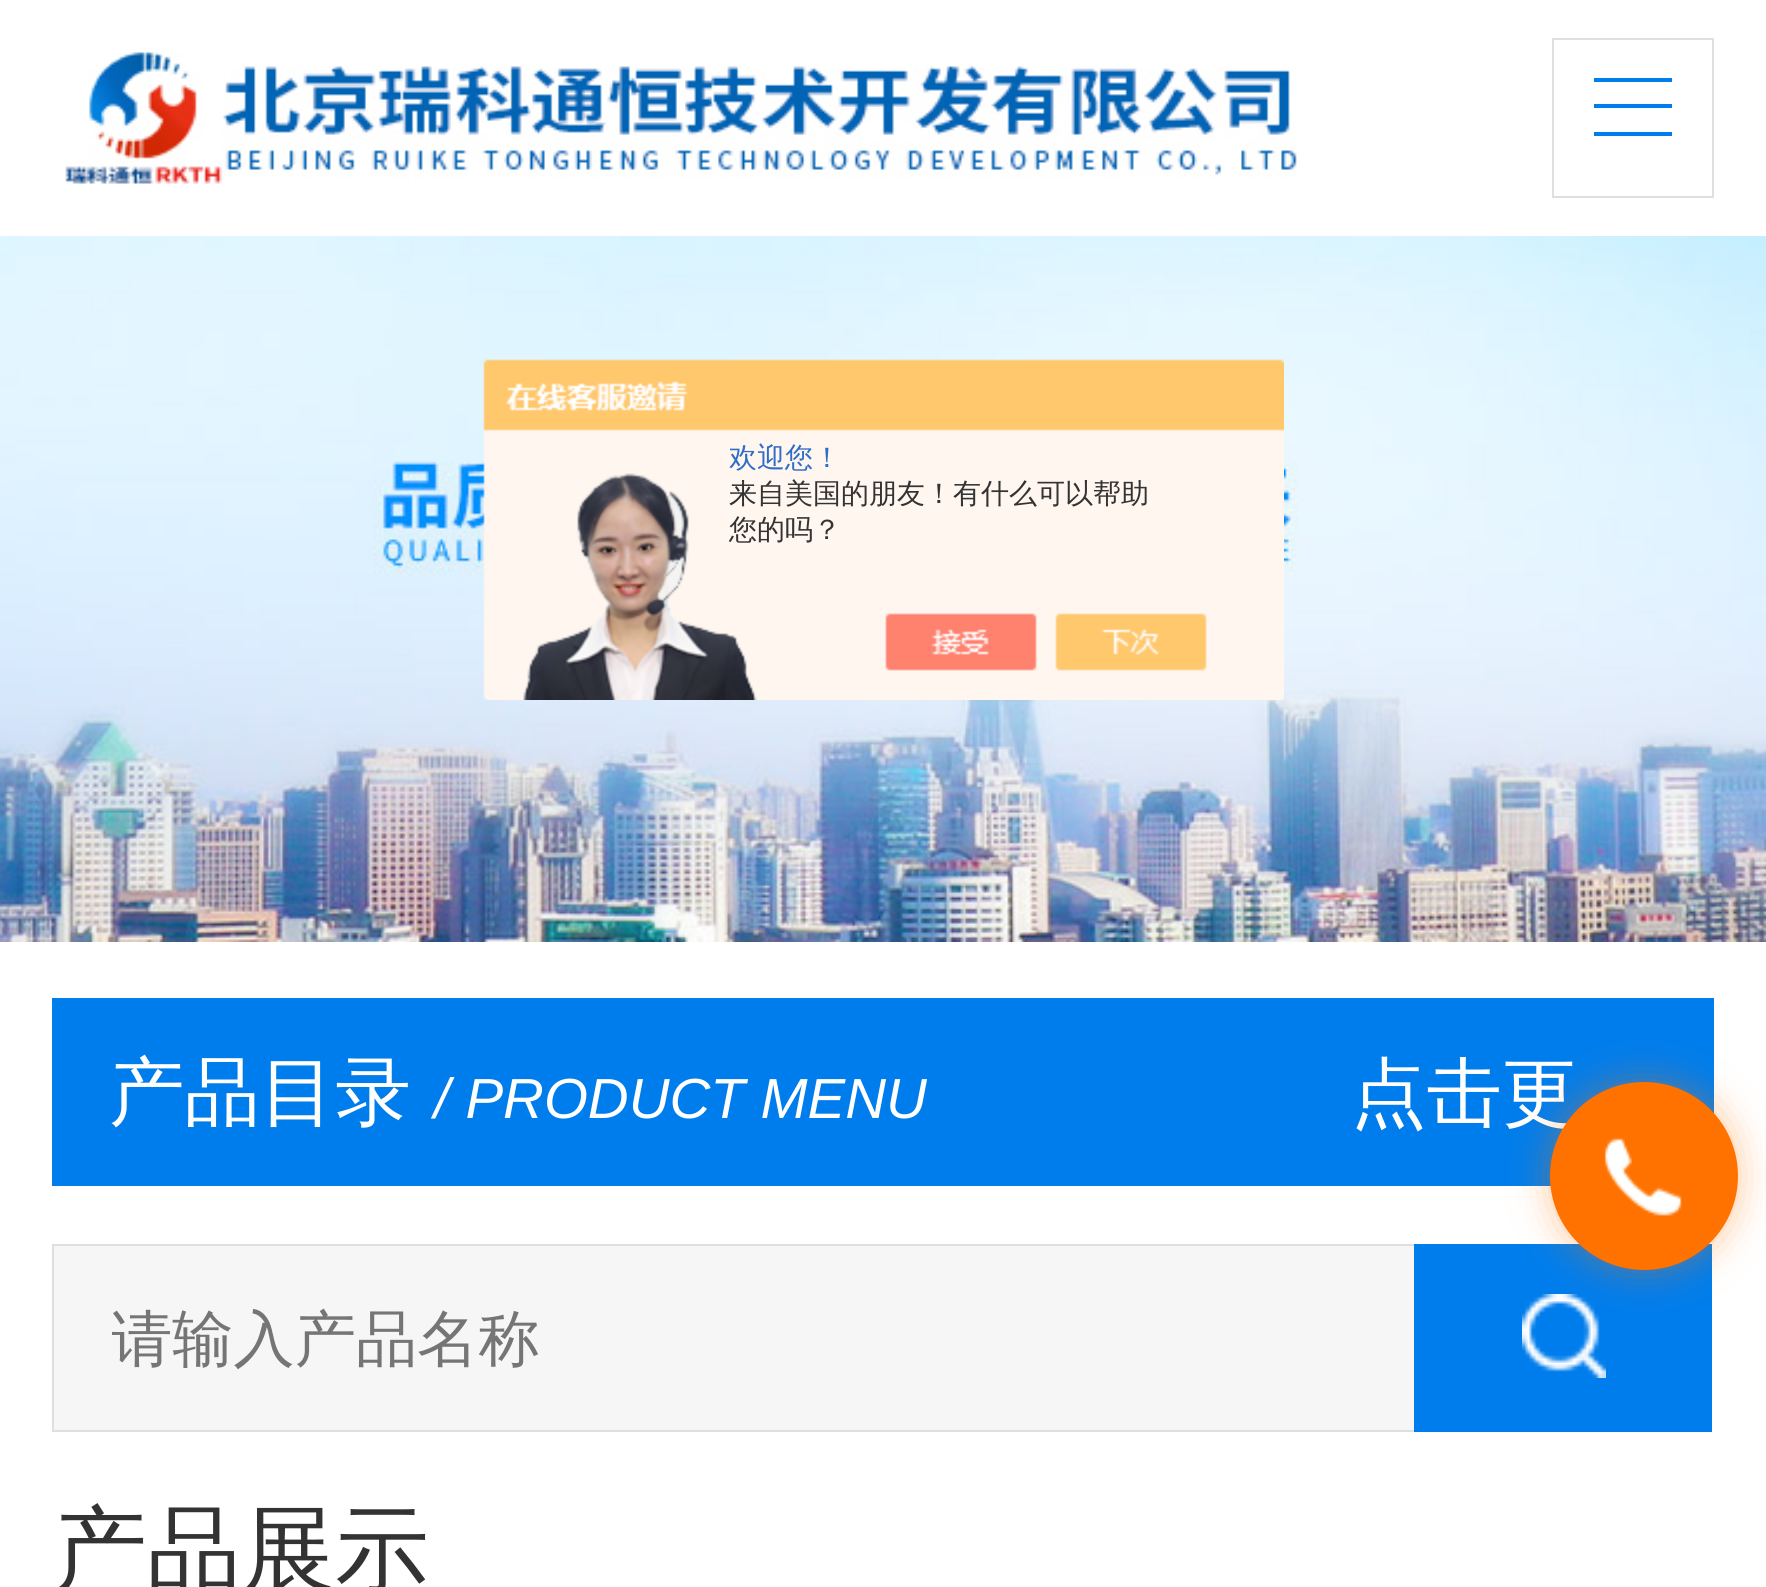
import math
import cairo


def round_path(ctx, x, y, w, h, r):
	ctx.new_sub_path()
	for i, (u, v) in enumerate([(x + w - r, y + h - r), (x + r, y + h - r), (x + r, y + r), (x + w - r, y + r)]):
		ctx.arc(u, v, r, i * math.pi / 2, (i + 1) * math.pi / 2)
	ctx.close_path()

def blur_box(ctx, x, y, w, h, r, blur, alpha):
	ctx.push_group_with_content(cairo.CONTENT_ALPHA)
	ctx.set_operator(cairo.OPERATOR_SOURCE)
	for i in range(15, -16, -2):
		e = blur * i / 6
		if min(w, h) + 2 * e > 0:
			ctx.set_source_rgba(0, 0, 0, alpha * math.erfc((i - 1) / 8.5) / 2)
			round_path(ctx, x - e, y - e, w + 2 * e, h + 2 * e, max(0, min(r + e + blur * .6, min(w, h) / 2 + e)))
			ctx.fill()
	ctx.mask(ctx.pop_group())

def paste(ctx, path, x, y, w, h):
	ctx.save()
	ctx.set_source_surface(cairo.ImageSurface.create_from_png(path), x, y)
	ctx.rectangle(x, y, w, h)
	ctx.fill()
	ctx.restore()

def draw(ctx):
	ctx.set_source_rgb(1, 1, 1)
	ctx.paint()
	paste(ctx, 'media/1.png', 65, 52, 1232, 132)
	ctx.rectangle(1553, 39, 160, 158)
	ctx.set_source_rgb(0.875, 0.875, 0.875)
	ctx.stroke()
	ctx.set_source_rgb(0, 0.49, 0.922)
	ctx.rectangle(1594, 78, 78, 4)
	ctx.rectangle(1594, 104, 78, 4)
	ctx.rectangle(1594, 132, 78, 4)
	ctx.fill()
	paste(ctx, 'media/2.png', 0, 236, 1766, 706)
	paste(ctx, 'media/3.png', 483, 359, 801, 341)
	ctx.select_font_face('WenQuanYi Zen Hei Medium')
	ctx.set_font_size(28)
	ctx.set_source_rgb(0.18, 0.431, 0.776)
	ctx.move_to(729, 467)
	ctx.show_text('欢迎您！')
	ctx.set_source_rgb(0.2, 0.2, 0.2)
	ctx.move_to(729, 503)
	ctx.show_text('来自美国的朋友！有什么可以帮助')
	ctx.move_to(729, 539)
	ctx.show_text('您的吗？')
	ctx.set_source_rgb(0, 0.49, 0.922)
	ctx.rectangle(52, 998, 1662, 188)
	ctx.fill()
	ctx.set_font_size(75.5)
	ctx.set_source_rgb(1, 1, 1)
	ctx.move_to(109, 1118)
	ctx.show_text('产品目录')
	ctx.select_font_face('Liberation Sans', cairo.FONT_SLANT_ITALIC)
	ctx.set_font_size(56.5)
	ctx.move_to(434, 1118)
	ctx.show_text('/ PRODUCT MENU')
	ctx.select_font_face('WenQuanYi Zen Hei Medium')
	ctx.set_font_size(75.5)
	ctx.move_to(1351, 1119)
	ctx.show_text('点击更')
	ctx.set_source_rgb(0.961, 0.961, 0.961)
	ctx.rectangle(54, 1246, 1360, 184)
	ctx.fill()
	ctx.set_source_rgb(0.875, 0.875, 0.875)
	ctx.rectangle(52, 1244, 1362, 2)
	ctx.rectangle(52, 1430, 1362, 2)
	ctx.rectangle(52, 1244, 2, 188)
	ctx.fill()
	ctx.save()
	ctx.rectangle(112, 1300, 1246, 82)
	ctx.clip()
	ctx.set_font_size(61.25)
	ctx.set_source_rgb(0.459, 0.459, 0.459)
	ctx.move_to(111, 1360)
	ctx.show_text('请输入产品名称')
	ctx.restore()
	ctx.set_source_rgb(0, 0.49, 0.922)
	ctx.rectangle(1414, 1244, 298, 188)
	ctx.fill()
	paste(ctx, 'media/4.png', 1522, 1294, 84, 84)
	ctx.set_font_size(94)
	ctx.set_source_rgb(0.2, 0.2, 0.2)
	ctx.move_to(53, 1582)
	ctx.show_text('产品展示')
	ctx.set_source_rgb(1, 0.447, 0)
	blur_box(ctx, 1550, 1082, 188, 188, 94, 19, 0.4)
	ctx.set_source_rgb(1, 0.447, 0)
	ctx.arc(1644, 1176, 94, 0, 2 * math.pi)
	ctx.fill()
	paste(ctx, 'media/5.png', 1604, 1137, 78, 79)


surface = cairo.ImageSurface(cairo.FORMAT_RGB24, 1766, 1587)
ctx = cairo.Context(surface)
options = cairo.FontOptions()
options.set_hint_metrics(cairo.HINT_METRICS_OFF)
options.set_hint_style(cairo.HINT_STYLE_NONE)
ctx.set_font_options(options)
ctx.set_miter_limit(4)
draw(ctx)
surface.write_to_png('image.png')
